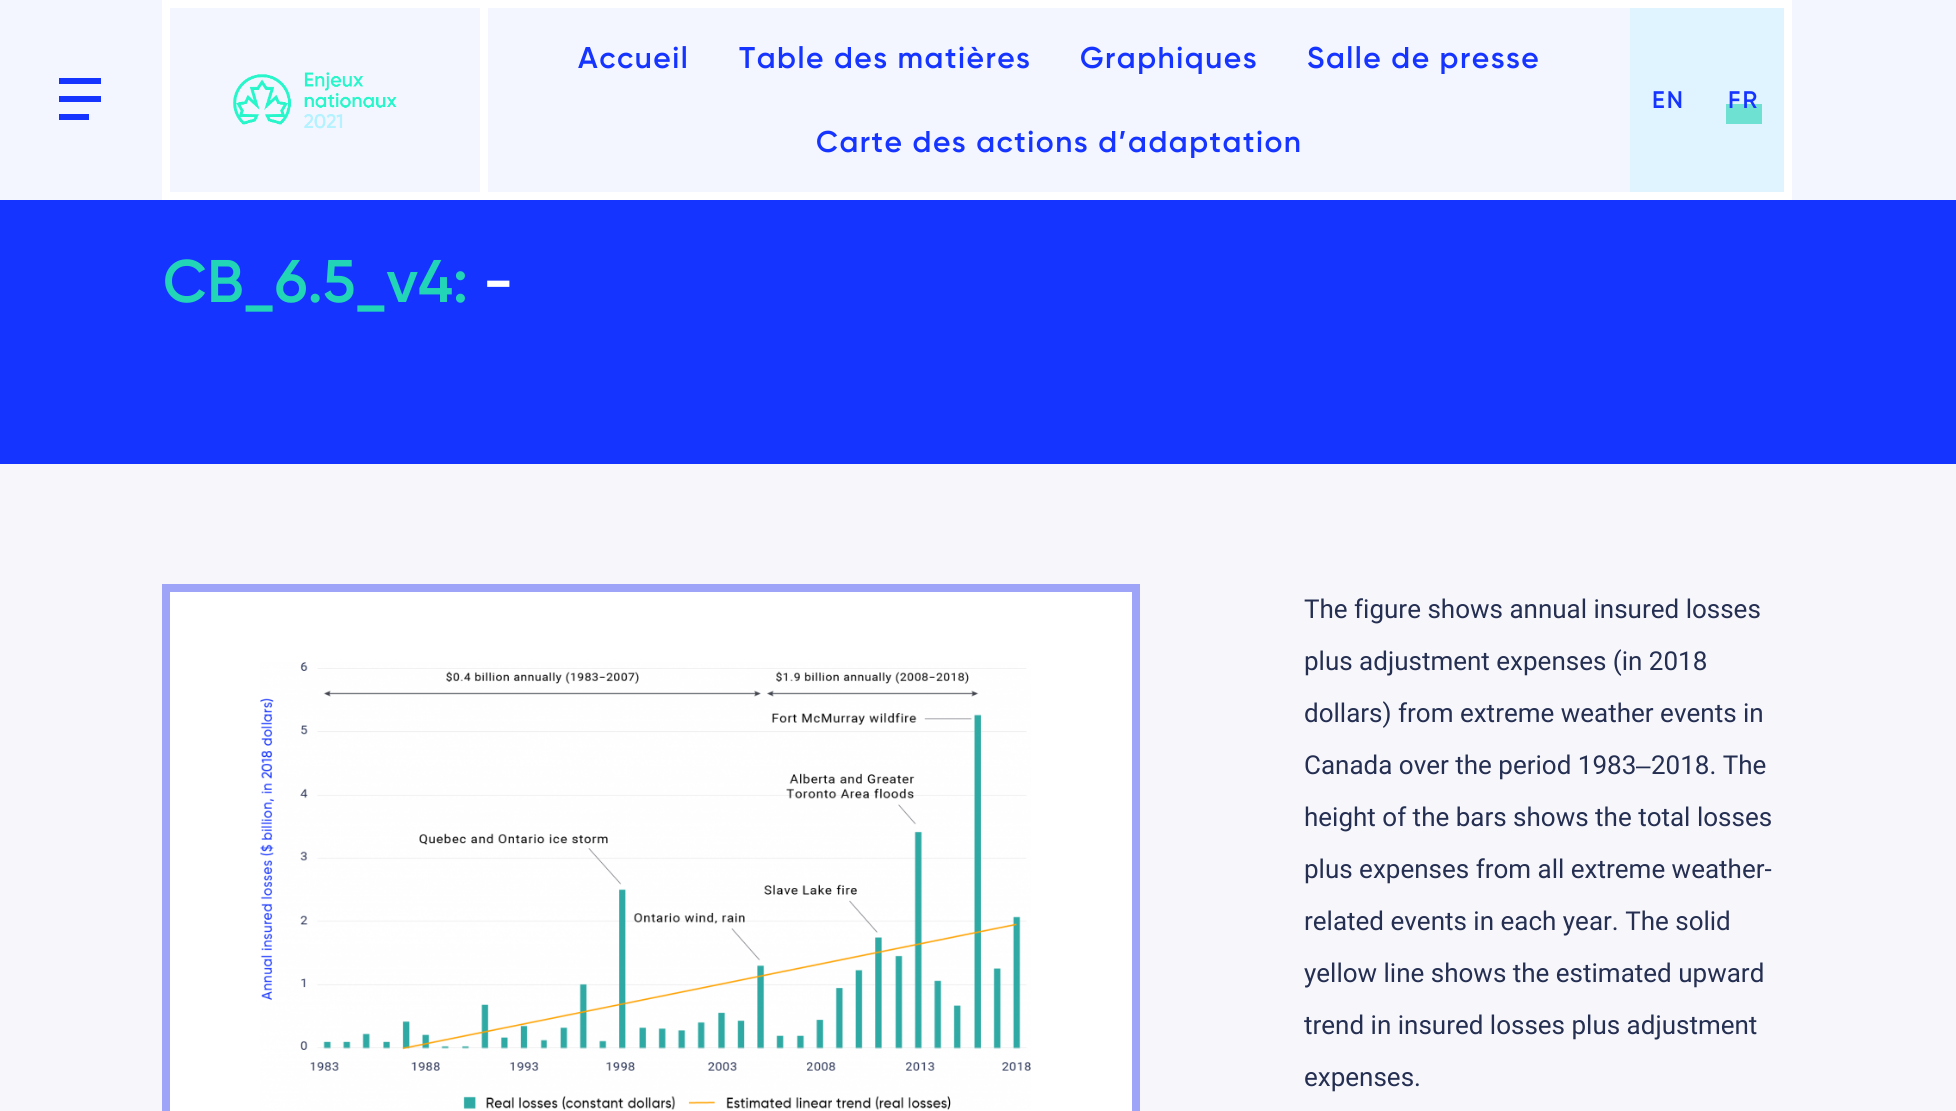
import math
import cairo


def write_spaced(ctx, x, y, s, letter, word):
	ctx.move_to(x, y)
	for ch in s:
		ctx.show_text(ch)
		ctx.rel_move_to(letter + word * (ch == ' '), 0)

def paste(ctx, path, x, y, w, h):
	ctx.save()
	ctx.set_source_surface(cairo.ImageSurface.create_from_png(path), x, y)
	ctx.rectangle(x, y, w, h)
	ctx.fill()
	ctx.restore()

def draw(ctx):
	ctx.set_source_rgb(0.965, 0.965, 0.984)
	ctx.paint()
	ctx.set_source_rgb(0.953, 0.961, 1)
	ctx.rectangle(0, 0, 1956, 200)
	ctx.fill()
	ctx.set_source_rgb(0.086, 0.204, 1)
	ctx.new_path()
	ctx.move_to(101, 78)
	ctx.line_to(101, 84)
	ctx.line_to(59, 84)
	ctx.line_to(59, 78)
	ctx.close_path()
	ctx.move_to(59, 102)
	ctx.line_to(101, 102)
	ctx.line_to(101, 96)
	ctx.line_to(59, 96)
	ctx.close_path()
	ctx.move_to(59, 120)
	ctx.line_to(89, 120)
	ctx.line_to(89, 114)
	ctx.line_to(59, 114)
	ctx.close_path()
	ctx.fill()
	ctx.rectangle(166, 4, 318, 192)
	ctx.set_source_rgb(1, 1, 1)
	ctx.set_line_width(8)
	ctx.stroke()
	paste(ctx, 'media/1.png', 233, 72, 164, 57)
	ctx.rectangle(488, 0, 1304, 8)
	ctx.fill()
	ctx.rectangle(488, 192, 1142, 8)
	ctx.fill()
	ctx.select_font_face('Gilroy SemiBold')
	ctx.set_font_size(30)
	ctx.set_source_rgb(0.086, 0.204, 1)
	for x, y, s in [
		(578, 68, 'Accueil'),
		(739, 68, 'Table des matières'),
		(1080, 68, 'Graphiques'),
		(1307, 68, 'Salle de presse'),
		(816, 152, 'Carte des actions d’adaptation'),
	]:
		write_spaced(ctx, x, y, s, 1.5, 0)
	ctx.set_source_rgb(0.878, 0.957, 1)
	ctx.rectangle(1630, 8, 154, 184)
	ctx.fill()
	ctx.set_source_rgb(1, 1, 1)
	ctx.rectangle(1784, 0, 8, 200)
	ctx.rectangle(1630, 192, 162, 8)
	ctx.fill()
	ctx.set_font_size(24)
	ctx.set_source_rgb(0.086, 0.204, 1)
	write_spaced(ctx, 1652, 108, 'EN', 2, 0)
	ctx.set_source_rgb(0.431, 0.882, 0.827)
	ctx.rectangle(1726, 104, 36, 20)
	ctx.fill()
	ctx.set_source_rgb(0.086, 0.204, 1)
	write_spaced(ctx, 1728, 108, 'FR', 2, 0)
	ctx.rectangle(0, 200, 1956, 264)
	ctx.fill()
	ctx.set_font_size(60)
	ctx.set_source_rgb(0.133, 0.835, 0.714)
	ctx.move_to(163, 302)
	ctx.show_text('CB_6.5_v4:')
	ctx.set_source_rgb(1, 1, 1)
	ctx.move_to(483, 302)
	ctx.show_text('-')
	ctx.rectangle(166, 588, 970, 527)
	ctx.fill_preserve()
	ctx.set_source_rgb(0.62, 0.647, 0.969)
	ctx.stroke()
	paste(ctx, 'media/2.png', 260, 662, 771, 448)
	ctx.select_font_face('Roboto')
	ctx.set_font_size(26)
	ctx.set_source_rgb(0.145, 0.184, 0.322)
	for x, y, s in [
		(1304, 618, 'The figure shows annual insured losses'),
		(1304, 670, 'plus adjustment expenses (in 2018'),
		(1304, 722, 'dollars) from extreme weather events in'),
		(1304, 774, 'Canada over the period 1983'),
	]:
		ctx.move_to(x, y)
		ctx.show_text(s)
	ctx.select_font_face('Liberation Sans')
	ctx.move_to(1636, 774)
	ctx.show_text('‒')
	ctx.select_font_face('Roboto')
	for x, y, s in [
		(1651, 774, '2018. The'),
		(1304, 826, 'height of the bars shows the total losses'),
		(1304, 878, 'plus expenses from all extreme weather-'),
		(1304, 930, 'related events in each year. The solid'),
		(1304, 982, 'yellow line shows the estimated upward'),
		(1304, 1034, 'trend in insured losses plus adjustment'),
		(1304, 1086, 'expenses.'),
	]:
		ctx.move_to(x, y)
		ctx.show_text(s)


surface = cairo.ImageSurface(cairo.FORMAT_RGB24, 1956, 1111)
ctx = cairo.Context(surface)
options = cairo.FontOptions()
options.set_hint_metrics(cairo.HINT_METRICS_OFF)
options.set_hint_style(cairo.HINT_STYLE_NONE)
ctx.set_font_options(options)
ctx.set_miter_limit(4)
draw(ctx)
surface.write_to_png('image.png')
